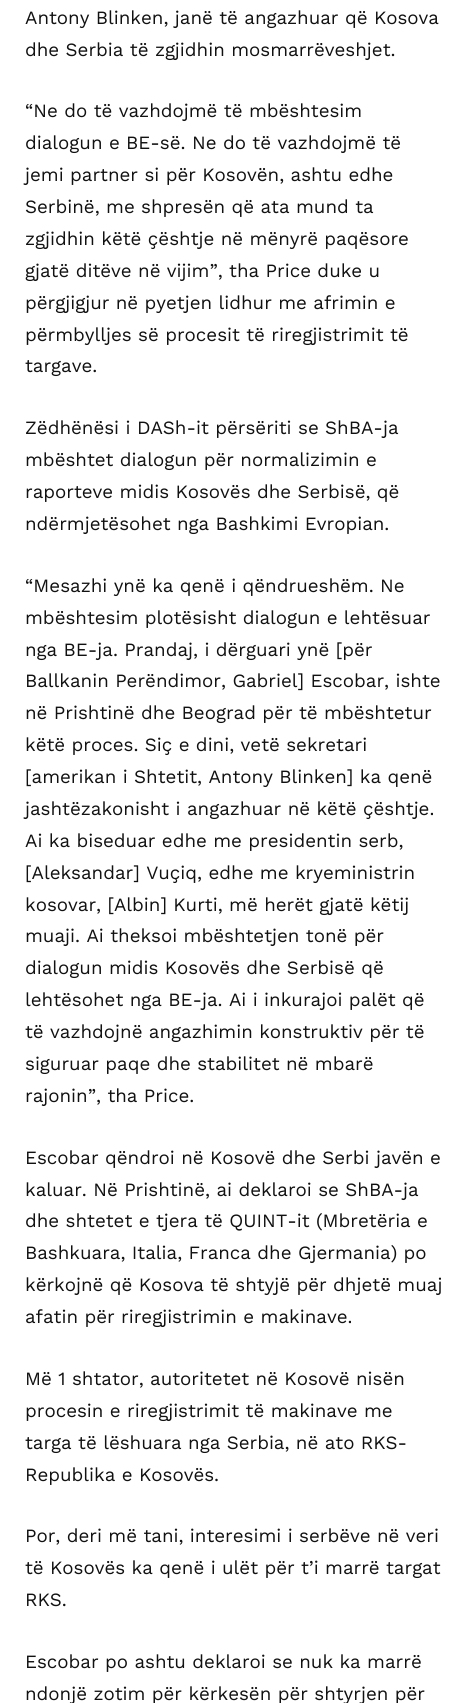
import math
import cairo


def draw(ctx):
	ctx.set_source_rgb(1, 1, 1)
	ctx.paint()
	ctx.select_font_face('Work Sans')
	ctx.set_font_size(18.75)
	ctx.set_source_rgb(0.067, 0.067, 0.067)
	for x, y, s in [
		(25, 24, 'Antony Blinken, janë të angazhuar që Kosova'),
		(25, 56, 'dhe Serbia të zgjidhin mosmarrëveshjet.'),
		(25, 117, '“Ne do të vazhdojmë të mbështesim'),
		(25, 149, 'dialogun e BE-së. Ne do të vazhdojmë të'),
		(25, 181, 'jemi partner si për Kosovën, ashtu edhe'),
		(25, 213, 'Serbinë, me shpresën që ata mund ta'),
		(25, 245, 'zgjidhin këtë çështje në mënyrë paqësore'),
		(25, 277, 'gjatë ditëve në vijim”, tha Price duke u'),
		(25, 309, 'përgjigjur në pyetjen lidhur me afrimin e'),
		(25, 341, 'përmbylljes së procesit të riregjistrimit të'),
		(25, 372, 'targave.'),
		(25, 434, 'Zëdhënësi i DASh-it përsëriti se ShBA-ja'),
		(25, 466, 'mbështet dialogun për normalizimin e'),
		(25, 498, 'raporteve midis Kosovës dhe Serbisë, që'),
		(25, 530, 'ndërmjetësohet nga Bashkimi Evropian.'),
		(25, 592, '“Mesazhi ynë ka qenë i qëndrueshëm. Ne'),
		(25, 624, 'mbështesim plotësisht dialogun e lehtësuar'),
		(25, 656, 'nga BE-ja. Prandaj, i dërguari ynë [për'),
		(25, 687, 'Ballkanin Perëndimor, Gabriel] Escobar, ishte'),
		(25, 719, 'në Prishtinë dhe Beograd për të mbështetur'),
		(25, 751, 'këtë proces. Siç e dini, vetë sekretari'),
		(25, 783, '[amerikan i Shtetit, Antony Blinken] ka qenë'),
		(25, 815, 'jashtëzakonisht i angazhuar në këtë çështje.'),
		(25, 847, 'Ai ka biseduar edhe me presidentin serb,'),
		(25, 879, '[Aleksandar] Vuçiq, edhe me kryeministrin'),
		(25, 911, 'kosovar, [Albin] Kurti, më herët gjatë këtij'),
		(25, 942, 'muaji. Ai theksoi mbështetjen tonë për'),
		(25, 974, 'dialogun midis Kosovës dhe Serbisë që'),
		(25, 1006, 'lehtësohet nga BE-ja. Ai i inkurajoi palët që'),
		(25, 1038, 'të vazhdojnë angazhimin konstruktiv për të'),
		(25, 1070, 'siguruar paqe dhe stabilitet në mbarë'),
		(25, 1102, 'rajonin”, tha Price.'),
		(25, 1164, 'Escobar qëndroi në Kosovë dhe Serbi javën e'),
		(25, 1196, 'kaluar. Në Prishtinë, ai deklaroi se ShBA-ja'),
		(25, 1227, 'dhe shtetet e tjera të QUINT-it (Mbretëria e'),
		(25, 1259, 'Bashkuara, Italia, Franca dhe Gjermania) po'),
		(25, 1291, 'kërkojnë që Kosova të shtyjë për dhjetë muaj'),
		(25, 1323, 'afatin për riregjistrimin e makinave.'),
		(25, 1385, 'Më 1 shtator, autoritetet në Kosovë nisën'),
		(25, 1417, 'procesin e riregjistrimit të makinave me'),
		(25, 1449, 'targa të lëshuara nga Serbia, në ato RKS-'),
		(25, 1481, 'Republika e Kosovës.'),
		(25, 1542, 'Por, deri më tani, interesimi i serbëve në veri'),
		(25, 1574, 'të Kosovës ka qenë i ulët për t’i marrë targat'),
		(25, 1606, 'RKS.'),
		(25, 1668, 'Escobar po ashtu deklaroi se nuk ka marrë'),
		(25, 1700, 'ndonjë zotim për kërkesën për shtyrjen për'),
	]:
		ctx.move_to(x, y)
		ctx.show_text(s)


surface = cairo.ImageSurface(cairo.FORMAT_RGB24, 468, 1703)
ctx = cairo.Context(surface)
options = cairo.FontOptions()
options.set_hint_metrics(cairo.HINT_METRICS_OFF)
options.set_hint_style(cairo.HINT_STYLE_NONE)
ctx.set_font_options(options)
ctx.set_miter_limit(4)
draw(ctx)
surface.write_to_png('image.png')
